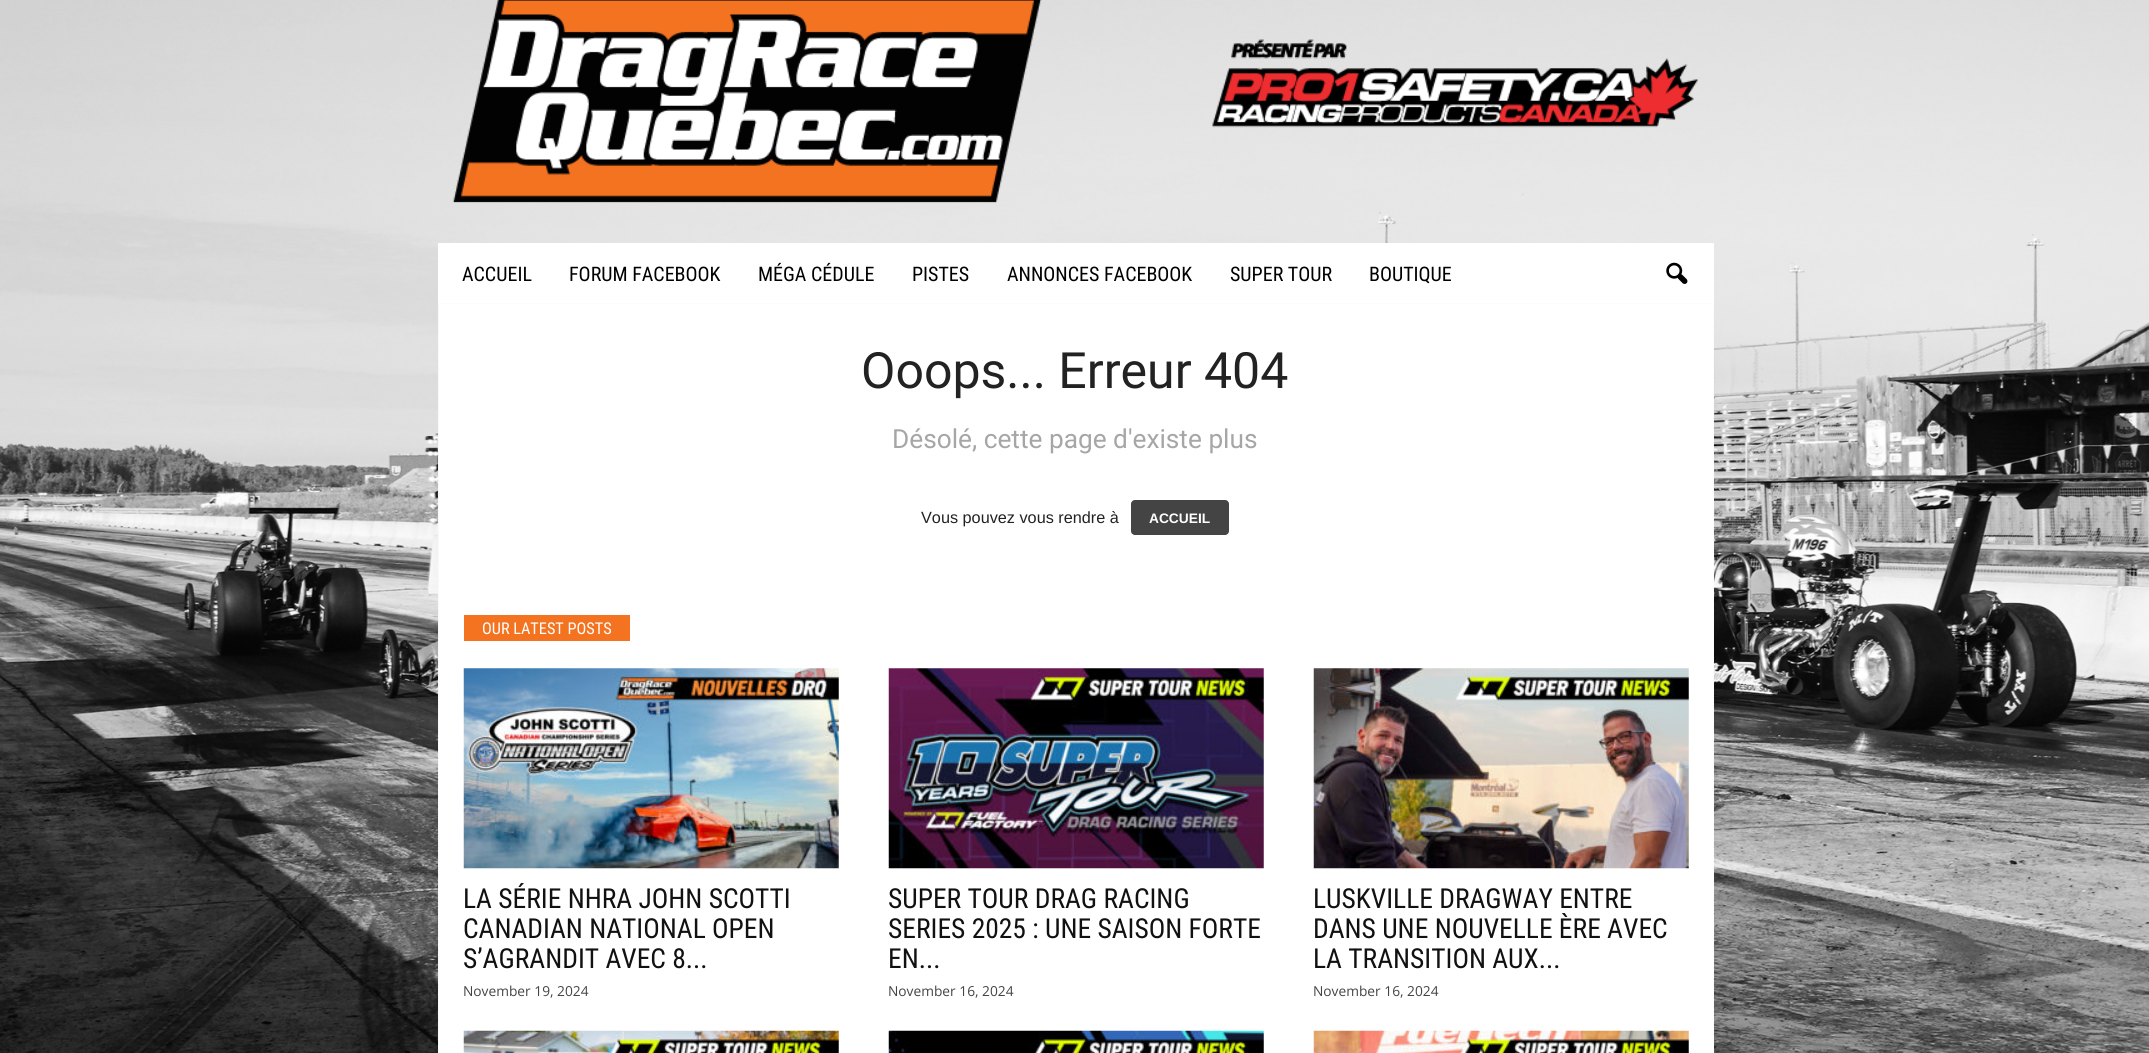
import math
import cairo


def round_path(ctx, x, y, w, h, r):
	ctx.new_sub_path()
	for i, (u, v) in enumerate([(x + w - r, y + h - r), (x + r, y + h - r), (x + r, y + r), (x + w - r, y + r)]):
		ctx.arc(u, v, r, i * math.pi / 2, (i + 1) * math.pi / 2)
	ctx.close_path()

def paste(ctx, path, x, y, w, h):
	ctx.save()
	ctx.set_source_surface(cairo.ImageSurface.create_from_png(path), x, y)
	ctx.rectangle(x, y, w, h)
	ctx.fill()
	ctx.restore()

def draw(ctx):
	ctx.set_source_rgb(1, 1, 1)
	ctx.paint()
	paste(ctx, 'media/1.png', 0, 0, 2149, 1053)
	paste(ctx, 'media/2.png', 453, 0, 1245, 203)
	ctx.set_source_rgb(1, 1, 1)
	ctx.rectangle(438, 243, 1276, 60)
	ctx.fill()
	ctx.set_source_rgb(0.976, 0.976, 0.976)
	ctx.rectangle(438, 303, 1, 750)
	ctx.fill()
	ctx.set_source_rgb(0.988, 0.988, 0.988)
	ctx.rectangle(1713, 303, 1, 750)
	ctx.rectangle(438, 303, 1276, 1)
	ctx.fill()
	ctx.select_font_face('Roboto Condensed')
	ctx.set_font_size(20)
	ctx.set_source_rgb(0, 0, 0)
	for x, y, s in [
		(462, 281, 'ACCUEIL'),
		(569, 281, 'FORUM FACEBOOK'),
		(758, 281, 'MÉGA CÉDULE'),
		(912, 281, 'PISTES'),
		(1007, 281, 'ANNONCES FACEBOOK'),
		(1230, 281, 'SUPER TOUR'),
		(1369, 281, 'BOUTIQUE'),
	]:
		ctx.move_to(x, y)
		ctx.show_text(s)
	paste(ctx, 'media/3.png', 1666, 262, 22, 22)
	ctx.set_source_rgb(1, 1, 1)
	ctx.rectangle(439, 304, 1274, 749)
	ctx.fill()
	ctx.select_font_face('Roboto')
	ctx.set_font_size(50)
	ctx.set_source_rgb(0.133, 0.133, 0.133)
	ctx.move_to(861, 388)
	ctx.show_text('Ooops... Erreur 404')
	ctx.set_font_size(26.25)
	ctx.set_source_rgb(0.651, 0.651, 0.651)
	ctx.move_to(892, 448)
	ctx.show_text('Désolé, cette page d\'existe plus')
	ctx.select_font_face('Liberation Sans')
	ctx.set_font_size(16.25)
	ctx.set_source_rgb(0.133, 0.133, 0.133)
	ctx.move_to(921, 523)
	ctx.show_text('Vous pouvez vous rendre à')
	ctx.set_source_rgb(0.267, 0.267, 0.267)
	round_path(ctx, 1131, 500, 98, 35, 4)
	ctx.fill()
	ctx.select_font_face('Liberation Sans', cairo.FONT_SLANT_NORMAL, cairo.FONT_WEIGHT_BOLD)
	ctx.set_font_size(13.75)
	ctx.set_source_rgb(1, 1, 1)
	ctx.move_to(1149, 523)
	ctx.show_text('ACCUEIL')
	ctx.set_source_rgb(0.957, 0.451, 0.129)
	ctx.rectangle(464, 615, 166, 26)
	ctx.fill()
	ctx.select_font_face('Roboto Condensed')
	ctx.set_font_size(16.25)
	ctx.set_source_rgb(1, 1, 1)
	ctx.move_to(482, 634)
	ctx.show_text('OUR LATEST POSTS')
	paste(ctx, 'media/4.png', 463, 668, 376, 201)
	ctx.set_font_size(27.5)
	ctx.set_source_rgb(0.067, 0.067, 0.067)
	for x, y, s in [
		(463, 908, 'LA SÉRIE NHRA JOHN SCOTTI'),
		(463, 938, 'CANADIAN NATIONAL OPEN'),
		(463, 968, 'S’AGRANDIT AVEC 8...'),
	]:
		ctx.move_to(x, y)
		ctx.show_text(s)
	ctx.select_font_face('Open Sans')
	ctx.set_font_size(13.75)
	ctx.set_source_rgb(0.267, 0.267, 0.267)
	ctx.move_to(463, 996)
	ctx.show_text('November 19, 2024')
	paste(ctx, 'media/5.png', 888, 668, 376, 201)
	ctx.select_font_face('Roboto Condensed')
	ctx.set_font_size(27.5)
	ctx.set_source_rgb(0.067, 0.067, 0.067)
	for x, y, s in [
		(888, 908, 'SUPER TOUR DRAG RACING'),
		(888, 938, 'SERIES 2025 : UNE SAISON FORTE'),
		(888, 968, 'EN...'),
	]:
		ctx.move_to(x, y)
		ctx.show_text(s)
	ctx.select_font_face('Open Sans')
	ctx.set_font_size(13.75)
	ctx.set_source_rgb(0.267, 0.267, 0.267)
	ctx.move_to(888, 996)
	ctx.show_text('November 16, 2024')
	paste(ctx, 'media/6.png', 1313, 668, 376, 201)
	ctx.select_font_face('Roboto Condensed')
	ctx.set_font_size(27.5)
	ctx.set_source_rgb(0.067, 0.067, 0.067)
	for x, y, s in [
		(1313, 908, 'LUSKVILLE DRAGWAY ENTRE'),
		(1313, 938, 'DANS UNE NOUVELLE ÈRE AVEC'),
		(1313, 968, 'LA TRANSITION AUX...'),
	]:
		ctx.move_to(x, y)
		ctx.show_text(s)
	ctx.select_font_face('Open Sans')
	ctx.set_font_size(13.75)
	ctx.set_source_rgb(0.267, 0.267, 0.267)
	ctx.move_to(1313, 996)
	ctx.show_text('November 16, 2024')
	paste(ctx, 'media/7.png', 463, 1030, 376, 23)
	paste(ctx, 'media/8.png', 888, 1030, 376, 23)
	paste(ctx, 'media/9.png', 1313, 1030, 376, 23)


surface = cairo.ImageSurface(cairo.FORMAT_RGB24, 2149, 1053)
ctx = cairo.Context(surface)
options = cairo.FontOptions()
options.set_hint_metrics(cairo.HINT_METRICS_OFF)
options.set_hint_style(cairo.HINT_STYLE_NONE)
ctx.set_font_options(options)
ctx.set_miter_limit(4)
draw(ctx)
surface.write_to_png('image.png')
